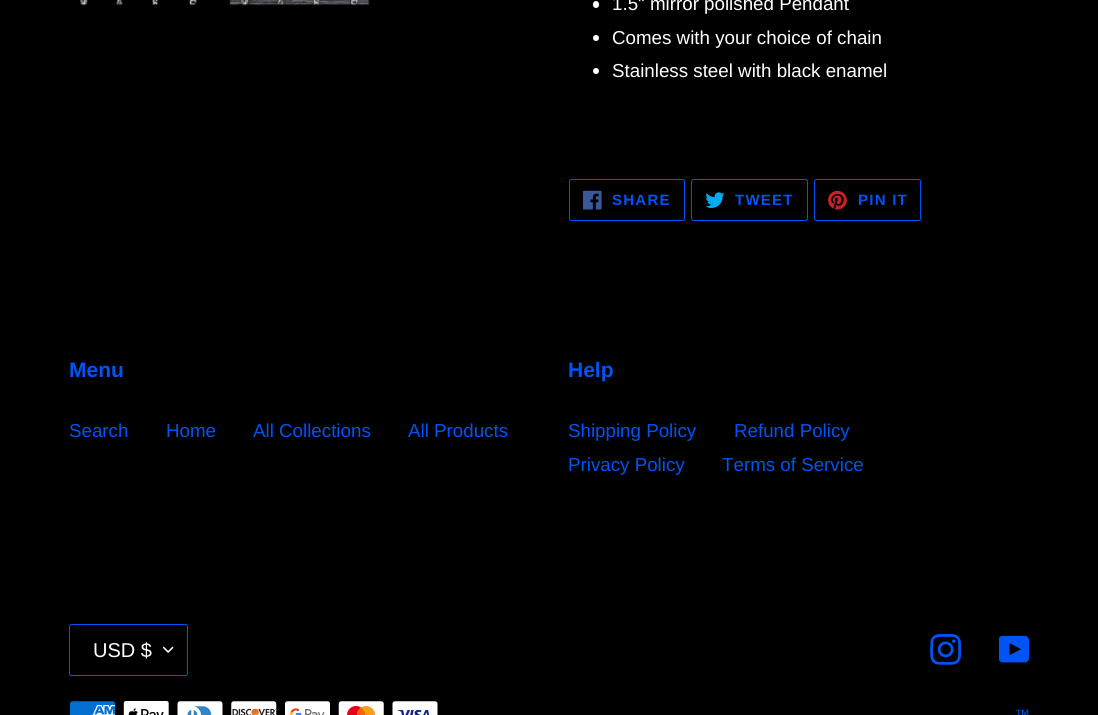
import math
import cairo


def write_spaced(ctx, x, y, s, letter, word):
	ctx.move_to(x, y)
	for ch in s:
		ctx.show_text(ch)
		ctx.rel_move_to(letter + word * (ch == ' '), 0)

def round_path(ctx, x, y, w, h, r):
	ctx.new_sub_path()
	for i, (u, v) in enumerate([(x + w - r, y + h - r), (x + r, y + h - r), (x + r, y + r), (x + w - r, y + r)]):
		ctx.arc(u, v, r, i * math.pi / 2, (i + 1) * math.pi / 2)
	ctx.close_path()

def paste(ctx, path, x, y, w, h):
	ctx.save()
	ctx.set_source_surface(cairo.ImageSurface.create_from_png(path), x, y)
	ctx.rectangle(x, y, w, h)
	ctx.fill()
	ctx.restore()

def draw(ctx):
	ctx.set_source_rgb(0, 0, 0)
	ctx.paint()
	paste(ctx, 'media/1.png', 80, 0, 117, 6)
	paste(ctx, 'media/2.png', 229, 0, 141, 6)
	ctx.set_source_rgb(1, 1, 1)
	round_path(ctx, 593, 1, 6, 7, 3)
	ctx.fill()
	ctx.select_font_face('Liberation Sans')
	ctx.set_font_size(18.75)
	ctx.move_to(612, 10)
	ctx.show_text('1.5" mirror polished Pendant')
	ctx.new_path()
	ctx.arc(596, 38, 3, 0, 2 * math.pi)
	ctx.fill()
	ctx.move_to(612, 44)
	ctx.show_text('Comes with your choice of chain')
	ctx.new_path()
	ctx.arc(596, 71, 3, 0, 2 * math.pi)
	ctx.fill()
	ctx.move_to(612, 77)
	ctx.show_text('Stainless steel with black enamel')
	round_path(ctx, 569.5, 179.5, 115, 41, 2)
	ctx.set_source_rgb(0, 0.325, 0.961)
	ctx.set_line_width(1)
	ctx.stroke()
	paste(ctx, 'media/3.png', 583, 190, 19, 20)
	ctx.select_font_face('Liberation Sans', cairo.FONT_SLANT_NORMAL, cairo.FONT_WEIGHT_BOLD)
	ctx.set_font_size(15)
	write_spaced(ctx, 612, 205, 'SHARE', 1.25, 0)
	round_path(ctx, 691.5, 179.5, 116, 41, 2)
	ctx.stroke()
	paste(ctx, 'media/4.png', 705, 192, 20, 16)
	write_spaced(ctx, 735, 205, 'TWEET', 1.25, 0)
	round_path(ctx, 814.5, 179.5, 106, 41, 2)
	ctx.stroke()
	paste(ctx, 'media/5.png', 828, 190, 19, 20)
	write_spaced(ctx, 858, 205, 'PIN IT', 1.25, 0)
	ctx.set_font_size(21)
	ctx.move_to(69, 377)
	ctx.show_text('Menu')
	ctx.select_font_face('Liberation Sans')
	ctx.set_font_size(18.75)
	for x, y, s in [
		(69, 437, 'Search'),
		(166, 437, 'Home'),
		(253, 437, 'All Collections'),
		(408, 437, 'All Products'),
	]:
		ctx.move_to(x, y)
		ctx.show_text(s)
	ctx.select_font_face('Liberation Sans', cairo.FONT_SLANT_NORMAL, cairo.FONT_WEIGHT_BOLD)
	ctx.set_font_size(21)
	ctx.move_to(568, 377)
	ctx.show_text('Help')
	ctx.select_font_face('Liberation Sans')
	ctx.set_font_size(18.75)
	for x, y, s in [
		(568, 437, 'Shipping Policy'),
		(734, 437, 'Refund Policy'),
		(568, 471, 'Privacy Policy'),
		(722, 471, 'Terms of Service'),
	]:
		ctx.move_to(x, y)
		ctx.show_text(s)
	paste(ctx, 'media/6.png', 163, 646, 11, 7)
	round_path(ctx, 69.5, 624.5, 118, 51, 2)
	ctx.stroke()
	ctx.set_font_size(20)
	ctx.set_source_rgb(1, 1, 1)
	ctx.move_to(93, 657)
	ctx.show_text('USD $')
	paste(ctx, 'media/7.png', 930, 634, 31, 31)
	paste(ctx, 'media/8.png', 999, 635, 30, 28)
	paste(ctx, 'media/9.png', 70, 701, 45, 14)
	paste(ctx, 'media/10.png', 123, 701, 46, 14)
	paste(ctx, 'media/11.png', 177, 701, 46, 14)
	paste(ctx, 'media/12.png', 231, 701, 46, 14)
	paste(ctx, 'media/13.png', 285, 701, 45, 14)
	paste(ctx, 'media/14.png', 338, 701, 46, 14)
	paste(ctx, 'media/15.png', 392, 701, 46, 14)
	ctx.set_font_size(15)
	ctx.set_source_rgb(0, 0.325, 0.961)
	ctx.move_to(1015, 720)
	ctx.show_text('™')


surface = cairo.ImageSurface(cairo.FORMAT_RGB24, 1098, 715)
ctx = cairo.Context(surface)
options = cairo.FontOptions()
options.set_hint_metrics(cairo.HINT_METRICS_OFF)
options.set_hint_style(cairo.HINT_STYLE_NONE)
ctx.set_font_options(options)
ctx.set_miter_limit(4)
draw(ctx)
surface.write_to_png('image.png')
